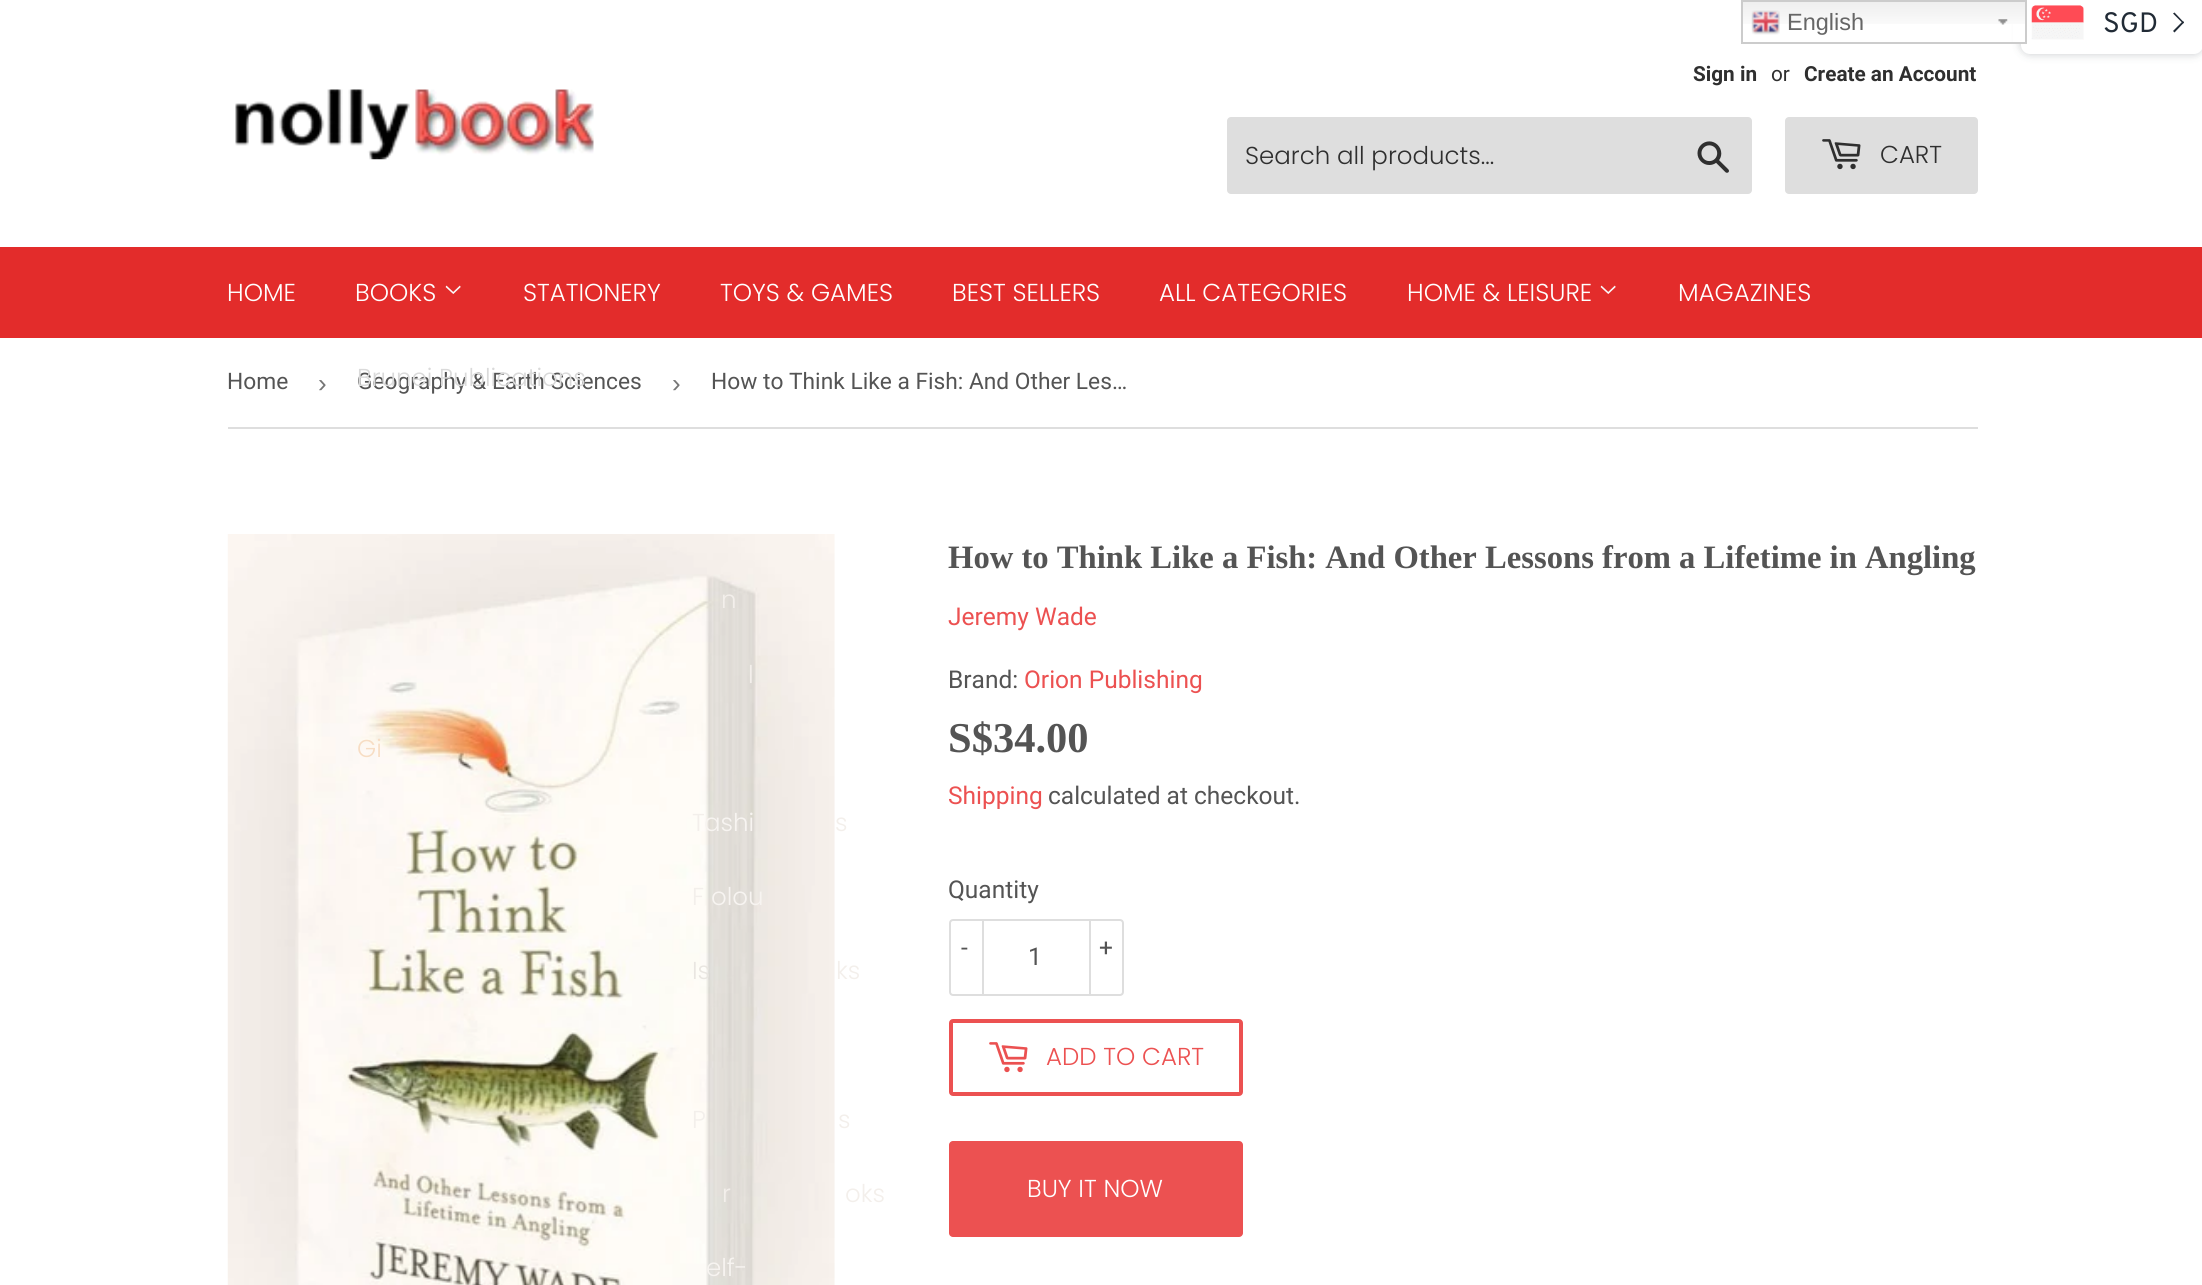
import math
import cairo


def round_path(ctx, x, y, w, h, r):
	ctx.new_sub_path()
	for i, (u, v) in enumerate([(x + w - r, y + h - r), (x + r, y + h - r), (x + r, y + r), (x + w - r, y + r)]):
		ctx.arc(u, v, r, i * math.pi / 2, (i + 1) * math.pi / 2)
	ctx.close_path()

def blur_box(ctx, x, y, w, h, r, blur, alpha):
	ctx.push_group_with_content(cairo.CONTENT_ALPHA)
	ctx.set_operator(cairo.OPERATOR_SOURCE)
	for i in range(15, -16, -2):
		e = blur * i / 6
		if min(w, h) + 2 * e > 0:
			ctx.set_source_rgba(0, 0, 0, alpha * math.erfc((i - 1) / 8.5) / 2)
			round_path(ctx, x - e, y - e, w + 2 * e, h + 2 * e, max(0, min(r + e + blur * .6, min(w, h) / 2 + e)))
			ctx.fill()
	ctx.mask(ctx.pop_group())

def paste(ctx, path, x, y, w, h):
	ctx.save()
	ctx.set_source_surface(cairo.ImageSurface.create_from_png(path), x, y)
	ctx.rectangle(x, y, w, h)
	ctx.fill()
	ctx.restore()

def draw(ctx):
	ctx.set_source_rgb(1, 1, 1)
	ctx.paint()
	ctx.set_source_rgb(0.129, 0.169, 0.212)
	blur_box(ctx, 2021, -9, 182, 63, 9, 4.5, 0.25)
	ctx.set_source_rgb(1, 1, 1)
	ctx.rectangle(2013, 24, 8, 18)
	ctx.fill()
	round_path(ctx, 2021, -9, 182, 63, 9)
	ctx.fill()
	paste(ctx, 'media/1.png', 1743, 2, 282, 22)
	paste(ctx, 'media/2.png', 1998, 19, 10, 6)
	ctx.rectangle(1742, 1, 284, 42)
	ctx.set_source_rgb(0.8, 0.8, 0.8)
	ctx.stroke()
	paste(ctx, 'media/3.png', 1751, 10, 29, 25)
	ctx.select_font_face('Liberation Sans')
	ctx.set_font_size(23.5)
	ctx.set_source_rgb(0.4, 0.4, 0.4)
	ctx.move_to(1787, 30)
	ctx.show_text('English')
	paste(ctx, 'media/4.png', 2031, 5, 53, 35)
	ctx.select_font_face('Overpass')
	ctx.set_font_size(28)
	ctx.set_source_rgb(0.129, 0.169, 0.212)
	ctx.move_to(2103, 32)
	ctx.show_text('SGD')
	ctx.new_path()
	ctx.move_to(2173, 13.5)
	ctx.line_to(2174.5, 12.5)
	ctx.line_to(2184, 22.5)
	ctx.line_to(2183, 23.5)
	ctx.close_path()
	ctx.fill()
	ctx.new_path()
	ctx.move_to(2173, 31)
	ctx.line_to(2183, 21)
	ctx.line_to(2184, 22.5)
	ctx.line_to(2174.5, 32.5)
	ctx.close_path()
	ctx.fill()
	paste(ctx, 'media/5.png', 235, 89, 359, 71)
	ctx.select_font_face('Roboto', cairo.FONT_SLANT_NORMAL, cairo.FONT_WEIGHT_BOLD)
	ctx.set_font_size(20.75)
	ctx.set_source_rgb(0.184, 0.184, 0.184)
	ctx.move_to(1693, 81)
	ctx.show_text('Sign in')
	ctx.select_font_face('Roboto')
	ctx.move_to(1771, 81)
	ctx.show_text('or')
	ctx.select_font_face('Roboto', cairo.FONT_SLANT_NORMAL, cairo.FONT_WEIGHT_BOLD)
	ctx.move_to(1804, 81)
	ctx.show_text('Create an Account')
	ctx.set_source_rgb(0.871, 0.871, 0.871)
	round_path(ctx, 1227, 117, 525, 77, 4)
	ctx.fill()
	ctx.select_font_face('Poppins Light')
	ctx.set_font_size(24.5)
	ctx.set_source_rgb(0.184, 0.184, 0.184)
	ctx.move_to(1245, 164)
	ctx.show_text('Search all products...')
	paste(ctx, 'media/6.png', 1697, 141, 32, 32)
	ctx.set_source_rgb(0.871, 0.871, 0.871)
	round_path(ctx, 1785, 117, 193, 77, 4)
	ctx.fill()
	paste(ctx, 'media/7.png', 1822, 139, 39, 31)
	ctx.set_source_rgb(0.184, 0.184, 0.184)
	ctx.move_to(1880, 163)
	ctx.show_text('CART')
	ctx.set_source_rgb(0.89, 0.173, 0.169)
	ctx.rectangle(0, 247, 2202, 91)
	ctx.fill()
	ctx.set_source_rgb(1, 1, 1)
	ctx.move_to(227, 301)
	ctx.show_text('HOME')
	ctx.move_to(355, 301)
	ctx.show_text('BOOKS')
	paste(ctx, 'media/8.png', 445, 285, 16, 9)
	ctx.select_font_face('Roboto')
	ctx.set_font_size(22.75)
	ctx.set_source_rgb(0.329, 0.329, 0.329)
	ctx.move_to(357, 389)
	ctx.show_text('Geography & Earth Sciences')
	ctx.select_font_face('Poppins Light')
	ctx.set_font_size(24.5)
	ctx.set_source_rgb(0.855, 0.855, 0.855)
	ctx.move_to(357, 386)
	ctx.show_text('Brunei Publications')
	paste(ctx, 'media/9.png', 227, 534, 608, 751)
	ctx.set_source_rgb(0.953, 0.937, 0.918)
	for x, y, s in [
		(721, 608, 'n'),
		(692, 831, 'T'),
		(835, 831, 's'),
	]:
		ctx.move_to(x, y)
		ctx.show_text(s)
	ctx.set_source_rgb(0.965, 0.867, 0.769)
	ctx.move_to(357, 757)
	ctx.show_text('Gi')
	ctx.set_source_rgb(0.953, 0.937, 0.918)
	ctx.move_to(748, 683)
	ctx.show_text('l')
	ctx.set_source_rgb(0.965, 0.957, 0.945)
	ctx.move_to(711, 905)
	ctx.show_text('olou')
	ctx.set_source_rgb(0.953, 0.937, 0.918)
	ctx.move_to(836, 979)
	ctx.show_text('ks')
	ctx.move_to(838, 1128)
	ctx.show_text('s')
	ctx.set_source_rgb(0.965, 0.957, 0.945)
	ctx.move_to(704, 831)
	ctx.show_text('ashi')
	ctx.set_source_rgb(0.953, 0.937, 0.918)
	ctx.move_to(692, 905)
	ctx.show_text('F')
	ctx.set_source_rgb(0.914, 0.902, 0.882)
	ctx.move_to(692, 979)
	ctx.show_text('Is')
	ctx.set_source_rgb(0.953, 0.937, 0.918)
	for x, y, s in [
		(692, 1128, 'P'),
		(722, 1202, 'r'),
		(845, 1202, 'oks'),
	]:
		ctx.move_to(x, y)
		ctx.show_text(s)
	ctx.set_source_rgb(0.965, 0.957, 0.945)
	ctx.move_to(706, 1276)
	ctx.show_text('elf-')
	ctx.set_source_rgb(1, 1, 1)
	for x, y, s in [
		(523, 301, 'STATIONERY'),
		(720, 301, 'TOYS & GAMES'),
		(952, 301, 'BEST SELLERS'),
		(1159, 301, 'ALL CATEGORIES'),
		(1407, 301, 'HOME & LEISURE'),
	]:
		ctx.move_to(x, y)
		ctx.show_text(s)
	paste(ctx, 'media/8.png', 1600, 285, 16, 9)
	ctx.move_to(1678, 301)
	ctx.show_text('MAGAZINES')
	ctx.set_source_rgb(0.871, 0.871, 0.871)
	ctx.rectangle(228, 427, 1750, 2)
	ctx.fill()
	ctx.select_font_face('Roboto')
	ctx.set_font_size(22.75)
	ctx.set_source_rgb(0.329, 0.329, 0.329)
	ctx.move_to(227, 389)
	ctx.show_text('Home')
	ctx.select_font_face('Liberation Sans')
	ctx.set_font_size(26)
	ctx.set_source_rgb(0.463, 0.463, 0.463)
	ctx.move_to(318, 392)
	ctx.show_text('›')
	ctx.move_to(672, 392)
	ctx.show_text('›')
	ctx.select_font_face('Roboto')
	ctx.set_font_size(22.75)
	ctx.set_source_rgb(0.329, 0.329, 0.329)
	ctx.move_to(711, 389)
	ctx.show_text('How to Think Like a Fish: And Other Les…')
	ctx.select_font_face('Liberation Serif', cairo.FONT_SLANT_NORMAL, cairo.FONT_WEIGHT_BOLD)
	ctx.set_font_size(32.65)
	ctx.move_to(948, 568)
	ctx.show_text('How to Think Like a Fish: And Other Lessons from a Lifetime in Angling')
	ctx.select_font_face('Roboto')
	ctx.set_font_size(24.5)
	ctx.set_source_rgb(0.922, 0.318, 0.318)
	ctx.move_to(948, 625)
	ctx.show_text('Jeremy Wade')
	ctx.set_source_rgb(0.329, 0.329, 0.329)
	ctx.move_to(948, 688)
	ctx.show_text('Brand:')
	ctx.set_source_rgb(0.922, 0.318, 0.318)
	ctx.move_to(1024, 688)
	ctx.show_text('Orion Publishing')
	ctx.select_font_face('Liberation Serif', cairo.FONT_SLANT_NORMAL, cairo.FONT_WEIGHT_BOLD)
	ctx.set_font_size(42.5)
	ctx.set_source_rgb(0.329, 0.329, 0.329)
	ctx.move_to(948, 752)
	ctx.show_text('S$34.00')
	ctx.select_font_face('Roboto')
	ctx.set_font_size(24.5)
	ctx.set_source_rgb(0.922, 0.318, 0.318)
	ctx.move_to(948, 804)
	ctx.show_text('Shipping')
	ctx.set_source_rgb(0.329, 0.329, 0.329)
	ctx.move_to(1048, 804)
	ctx.show_text('calculated at checkout.')
	ctx.move_to(948, 898)
	ctx.show_text('Quantity')
	round_path(ctx, 950, 920, 173, 75, 3)
	ctx.set_source_rgb(0.871, 0.871, 0.871)
	ctx.stroke()
	ctx.rectangle(982, 919, 2, 77)
	ctx.fill()
	ctx.set_source_rgb(0.329, 0.329, 0.329)
	ctx.move_to(961, 956)
	ctx.show_text('-')
	ctx.move_to(1028, 965)
	ctx.show_text('1')
	ctx.set_source_rgb(0.871, 0.871, 0.871)
	ctx.rectangle(1089, 919, 2, 77)
	ctx.fill()
	ctx.set_source_rgb(0.329, 0.329, 0.329)
	ctx.move_to(1099, 956)
	ctx.show_text('+')
	round_path(ctx, 951, 1021, 290, 73, 2)
	ctx.set_source_rgb(0.922, 0.318, 0.318)
	ctx.set_line_width(4)
	ctx.stroke()
	paste(ctx, 'media/10.png', 989, 1042, 39, 31)
	ctx.select_font_face('Poppins Light')
	ctx.move_to(1046, 1065)
	ctx.show_text('ADD TO CART')
	round_path(ctx, 949, 1141, 294, 96, 4)
	ctx.fill()
	ctx.set_source_rgb(1, 1, 1)
	ctx.move_to(1027, 1197)
	ctx.show_text('BUY IT NOW')


surface = cairo.ImageSurface(cairo.FORMAT_RGB24, 2202, 1285)
ctx = cairo.Context(surface)
options = cairo.FontOptions()
options.set_hint_metrics(cairo.HINT_METRICS_OFF)
options.set_hint_style(cairo.HINT_STYLE_NONE)
ctx.set_font_options(options)
ctx.set_miter_limit(4)
draw(ctx)
surface.write_to_png('image.png')
